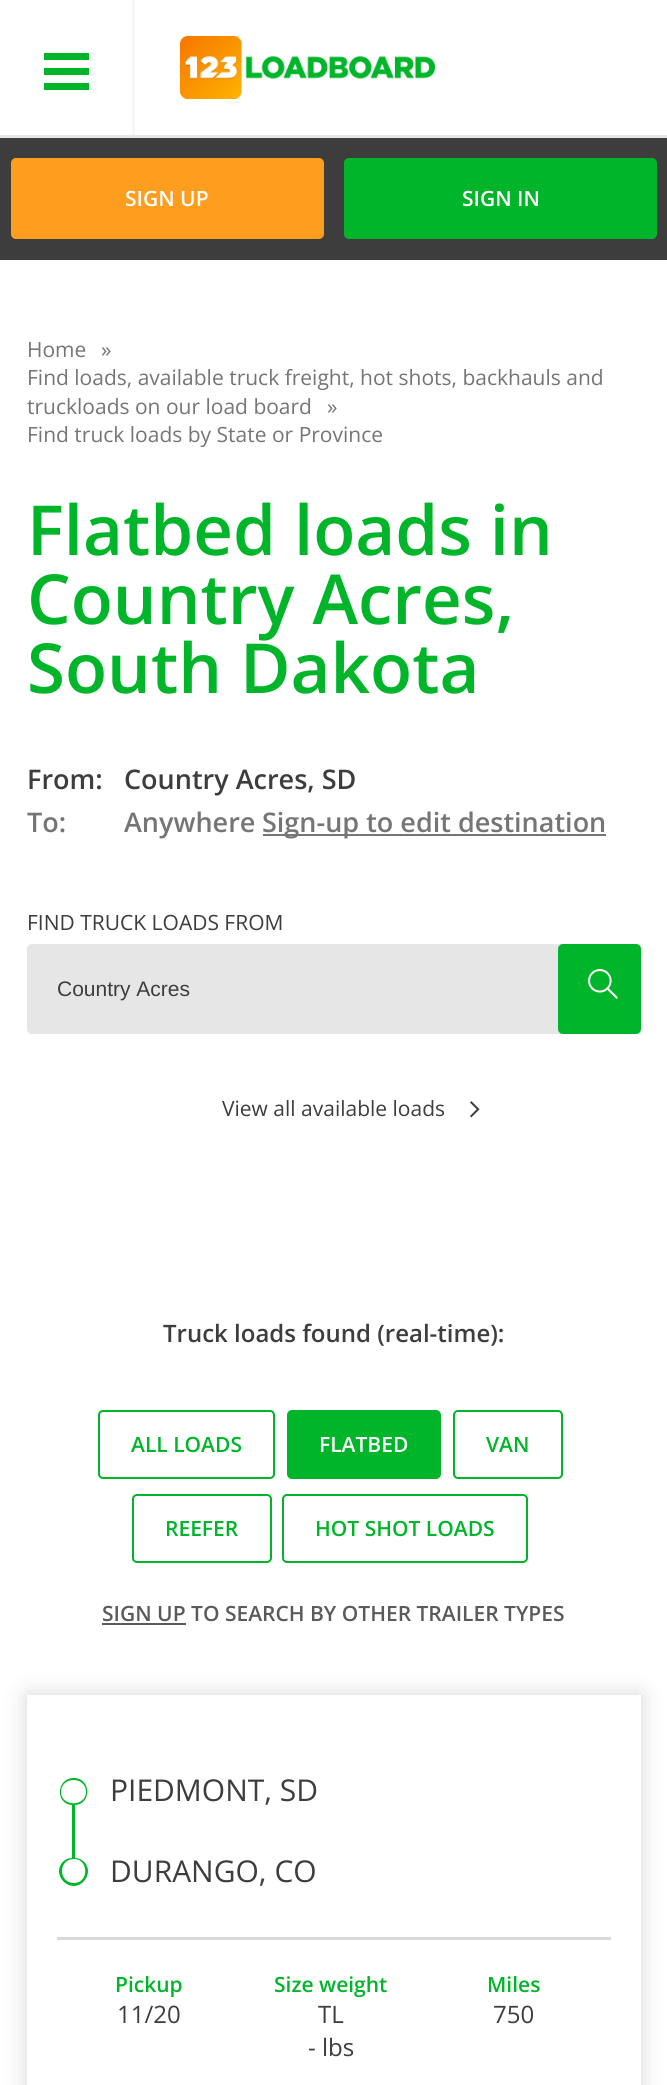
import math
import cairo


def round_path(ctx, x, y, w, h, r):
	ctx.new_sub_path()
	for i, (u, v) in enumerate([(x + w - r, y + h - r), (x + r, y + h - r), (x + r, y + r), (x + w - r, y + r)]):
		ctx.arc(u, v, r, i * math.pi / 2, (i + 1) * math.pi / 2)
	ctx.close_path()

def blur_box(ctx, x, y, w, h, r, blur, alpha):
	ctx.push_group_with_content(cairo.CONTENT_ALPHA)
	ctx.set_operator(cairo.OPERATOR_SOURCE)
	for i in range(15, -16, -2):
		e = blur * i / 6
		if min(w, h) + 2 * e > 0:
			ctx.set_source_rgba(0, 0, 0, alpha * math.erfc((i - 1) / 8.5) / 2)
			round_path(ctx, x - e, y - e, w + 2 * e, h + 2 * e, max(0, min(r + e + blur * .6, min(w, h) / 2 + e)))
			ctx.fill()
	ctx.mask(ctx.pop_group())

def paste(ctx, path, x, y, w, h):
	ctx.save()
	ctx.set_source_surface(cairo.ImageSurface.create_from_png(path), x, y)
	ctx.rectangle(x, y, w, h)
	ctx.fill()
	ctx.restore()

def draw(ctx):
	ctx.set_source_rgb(1, 1, 1)
	ctx.paint()
	ctx.set_source_rgb(0.898, 0.898, 0.898)
	ctx.rectangle(0, 135, 667, 3)
	ctx.fill()
	ctx.set_source_rgb(0.965, 0.965, 0.965)
	ctx.rectangle(132, 0, 3, 135)
	ctx.fill()
	ctx.set_source_rgb(0, 0.71, 0.161)
	ctx.rectangle(44, 68, 45, 7)
	ctx.rectangle(44, 53, 45, 7)
	ctx.rectangle(44, 83, 45, 7)
	ctx.fill()
	paste(ctx, 'media/1.png', 180, 36, 255, 63)
	ctx.set_source_rgb(0.239, 0.239, 0.239)
	ctx.rectangle(0, 138, 667, 122)
	ctx.fill()
	ctx.set_source_rgb(1, 0.616, 0.122)
	round_path(ctx, 11, 158, 313, 81, 5)
	ctx.fill()
	ctx.select_font_face('Open Sans SemiBold')
	ctx.set_font_size(21)
	ctx.set_source_rgb(1, 1, 1)
	ctx.move_to(125, 206)
	ctx.show_text('SIGN UP')
	ctx.set_source_rgb(0, 0.71, 0.161)
	round_path(ctx, 344, 158, 313, 81, 5)
	ctx.fill()
	ctx.set_source_rgb(1, 1, 1)
	ctx.move_to(462, 206)
	ctx.show_text('SIGN IN')
	ctx.select_font_face('Open Sans')
	ctx.set_source_rgb(0.459, 0.459, 0.459)
	for x, y, s in [
		(27, 357, 'Home'),
		(101, 357, '»'),
		(27, 385, 'Find loads, available truck freight, hot shots, backhauls and'),
		(27, 414, 'truckloads on our load board'),
		(327, 414, '»'),
		(27, 442, 'Find truck loads by State or Province'),
	]:
		ctx.move_to(x, y)
		ctx.show_text(s)
	ctx.select_font_face('Open Sans SemiBold')
	ctx.set_font_size(69)
	ctx.set_source_rgb(0, 0.71, 0.161)
	for x, y, s in [
		(27, 555, 'Flatbed loads in'),
		(27, 624, 'Country Acres,'),
		(27, 693, 'South Dakota'),
	]:
		ctx.move_to(x, y)
		ctx.show_text(s)
	ctx.set_font_size(27)
	ctx.set_source_rgb(0.239, 0.239, 0.239)
	ctx.move_to(27, 789)
	ctx.show_text('From:')
	ctx.move_to(124, 789)
	ctx.show_text('Country Acres, SD')
	ctx.set_source_rgb(0.459, 0.459, 0.459)
	ctx.move_to(27, 832)
	ctx.show_text('To:')
	ctx.move_to(124, 832)
	ctx.show_text('Anywhere')
	ctx.rectangle(263, 834, 343, 2)
	ctx.fill()
	ctx.move_to(262, 832)
	ctx.show_text('Sign-up to edit destination')
	ctx.select_font_face('Open Sans')
	ctx.set_font_size(21)
	ctx.set_source_rgb(0.239, 0.239, 0.239)
	ctx.move_to(27, 930)
	ctx.show_text('FIND TRUCK LOADS FROM')
	ctx.set_source_rgb(0.902, 0.902, 0.902)
	round_path(ctx, 27, 944, 614, 90, 5)
	ctx.fill()
	ctx.select_font_face('Liberation Sans')
	ctx.set_source_rgb(0.239, 0.239, 0.239)
	ctx.move_to(57, 996)
	ctx.show_text('Country Acres')
	ctx.set_source_rgb(0, 0.71, 0.161)
	round_path(ctx, 558, 944, 83, 90, 5)
	ctx.fill()
	paste(ctx, 'media/2.png', 588, 969, 30, 30)
	ctx.select_font_face('Open Sans')
	ctx.set_source_rgb(0.239, 0.239, 0.239)
	ctx.move_to(222, 1116)
	ctx.show_text('View all available loads')
	paste(ctx, 'media/3.png', 470, 1101, 10, 17)
	ctx.select_font_face('Open Sans SemiBold')
	ctx.set_font_size(24)
	ctx.move_to(163, 1342)
	ctx.show_text('Truck loads found (real-time):')
	round_path(ctx, 99, 1411, 175, 67, 4)
	ctx.set_source_rgb(0, 0.71, 0.161)
	ctx.stroke()
	ctx.set_font_size(21)
	ctx.move_to(131, 1452)
	ctx.show_text('ALL LOADS')
	round_path(ctx, 288, 1411, 152, 67, 4)
	ctx.fill_preserve()
	ctx.stroke()
	ctx.set_source_rgb(1, 1, 1)
	ctx.move_to(319, 1452)
	ctx.show_text('FLATBED')
	round_path(ctx, 454, 1411, 108, 67, 4)
	ctx.set_source_rgb(0, 0.71, 0.161)
	ctx.stroke()
	ctx.move_to(486, 1452)
	ctx.show_text('VAN')
	round_path(ctx, 133, 1495, 138, 67, 4)
	ctx.stroke()
	ctx.move_to(165, 1536)
	ctx.show_text('REEFER')
	round_path(ctx, 283, 1495, 244, 67, 4)
	ctx.stroke()
	ctx.move_to(315, 1536)
	ctx.show_text('HOT SHOT LOADS')
	ctx.set_source_rgb(0.353, 0.353, 0.353)
	ctx.move_to(102, 1621)
	ctx.show_text('SIGN UP TO SEARCH BY OTHER TRAILER TYPES')
	ctx.rectangle(102, 1623, 84, 2)
	ctx.fill()
	ctx.save()
	ctx.set_fill_rule(cairo.FILL_RULE_EVEN_ODD)
	ctx.new_path()
	ctx.move_to(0, 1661)
	ctx.line_to(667, 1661)
	ctx.line_to(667, 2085)
	ctx.line_to(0, 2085)
	ctx.close_path()
	ctx.move_to(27, 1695)
	ctx.line_to(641, 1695)
	ctx.line_to(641, 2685)
	ctx.line_to(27, 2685)
	ctx.close_path()
	ctx.clip()
	ctx.set_source_rgb(0.459, 0.459, 0.459)
	blur_box(ctx, 27, 1695, 614, 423, 0, 11, 0.3)
	ctx.restore()
	ctx.set_source_rgb(0, 0.71, 0.161)
	ctx.new_path()
	ctx.move_to(75, 1858)
	ctx.curve_to(82, 1858, 88, 1864, 88, 1871)
	ctx.curve_to(88, 1879, 81, 1886, 74, 1886)
	ctx.curve_to(66, 1886, 59, 1879, 59, 1871)
	ctx.curve_to(59, 1864, 65, 1858, 72, 1858)
	ctx.line_to(72, 1805)
	ctx.curve_to(55, 1804, 56, 1778, 74, 1778)
	ctx.curve_to(91, 1778, 92, 1804, 75, 1805)
	ctx.close_path()
	ctx.move_to(61, 1792)
	ctx.curve_to(61, 1807, 86, 1807, 86, 1792)
	ctx.curve_to(86, 1776, 61, 1776, 61, 1792)
	ctx.close_path()
	ctx.move_to(74, 1883)
	ctx.curve_to(89, 1883, 89, 1859, 74, 1859)
	ctx.curve_to(58, 1859, 58, 1883, 74, 1883)
	ctx.close_path()
	ctx.fill()
	ctx.select_font_face('Open Sans')
	ctx.set_font_size(30)
	ctx.set_source_rgb(0.239, 0.239, 0.239)
	ctx.move_to(110, 1801)
	ctx.show_text('PIEDMONT, SD')
	ctx.set_source_rgb(0.847, 0.847, 0.847)
	ctx.rectangle(57, 1937, 554, 3)
	ctx.fill()
	ctx.set_source_rgb(0.239, 0.239, 0.239)
	ctx.move_to(110, 1882)
	ctx.show_text('DURANGO, CO')
	ctx.select_font_face('Open Sans SemiBold')
	ctx.set_font_size(21)
	ctx.set_source_rgb(0, 0.71, 0.161)
	ctx.move_to(115, 1992)
	ctx.show_text('Pickup')
	ctx.select_font_face('Open Sans')
	ctx.set_font_size(24)
	ctx.set_source_rgb(0.239, 0.239, 0.239)
	ctx.move_to(117, 2023)
	ctx.show_text('11/20')
	ctx.select_font_face('Open Sans SemiBold')
	ctx.set_font_size(21)
	ctx.set_source_rgb(0, 0.71, 0.161)
	ctx.move_to(274, 1992)
	ctx.show_text('Size weight')
	ctx.select_font_face('Open Sans')
	ctx.set_font_size(24)
	ctx.set_source_rgb(0.239, 0.239, 0.239)
	ctx.move_to(318, 2023)
	ctx.show_text('TL')
	ctx.move_to(308, 2056)
	ctx.show_text('- lbs')
	ctx.select_font_face('Open Sans SemiBold')
	ctx.set_font_size(21)
	ctx.set_source_rgb(0, 0.71, 0.161)
	ctx.move_to(487, 1992)
	ctx.show_text('Miles')
	ctx.select_font_face('Open Sans')
	ctx.set_font_size(24)
	ctx.set_source_rgb(0.239, 0.239, 0.239)
	ctx.move_to(493, 2023)
	ctx.show_text('750')


surface = cairo.ImageSurface(cairo.FORMAT_RGB24, 667, 2085)
ctx = cairo.Context(surface)
options = cairo.FontOptions()
options.set_hint_metrics(cairo.HINT_METRICS_OFF)
options.set_hint_style(cairo.HINT_STYLE_NONE)
ctx.set_font_options(options)
ctx.set_miter_limit(4)
draw(ctx)
surface.write_to_png('image.png')
